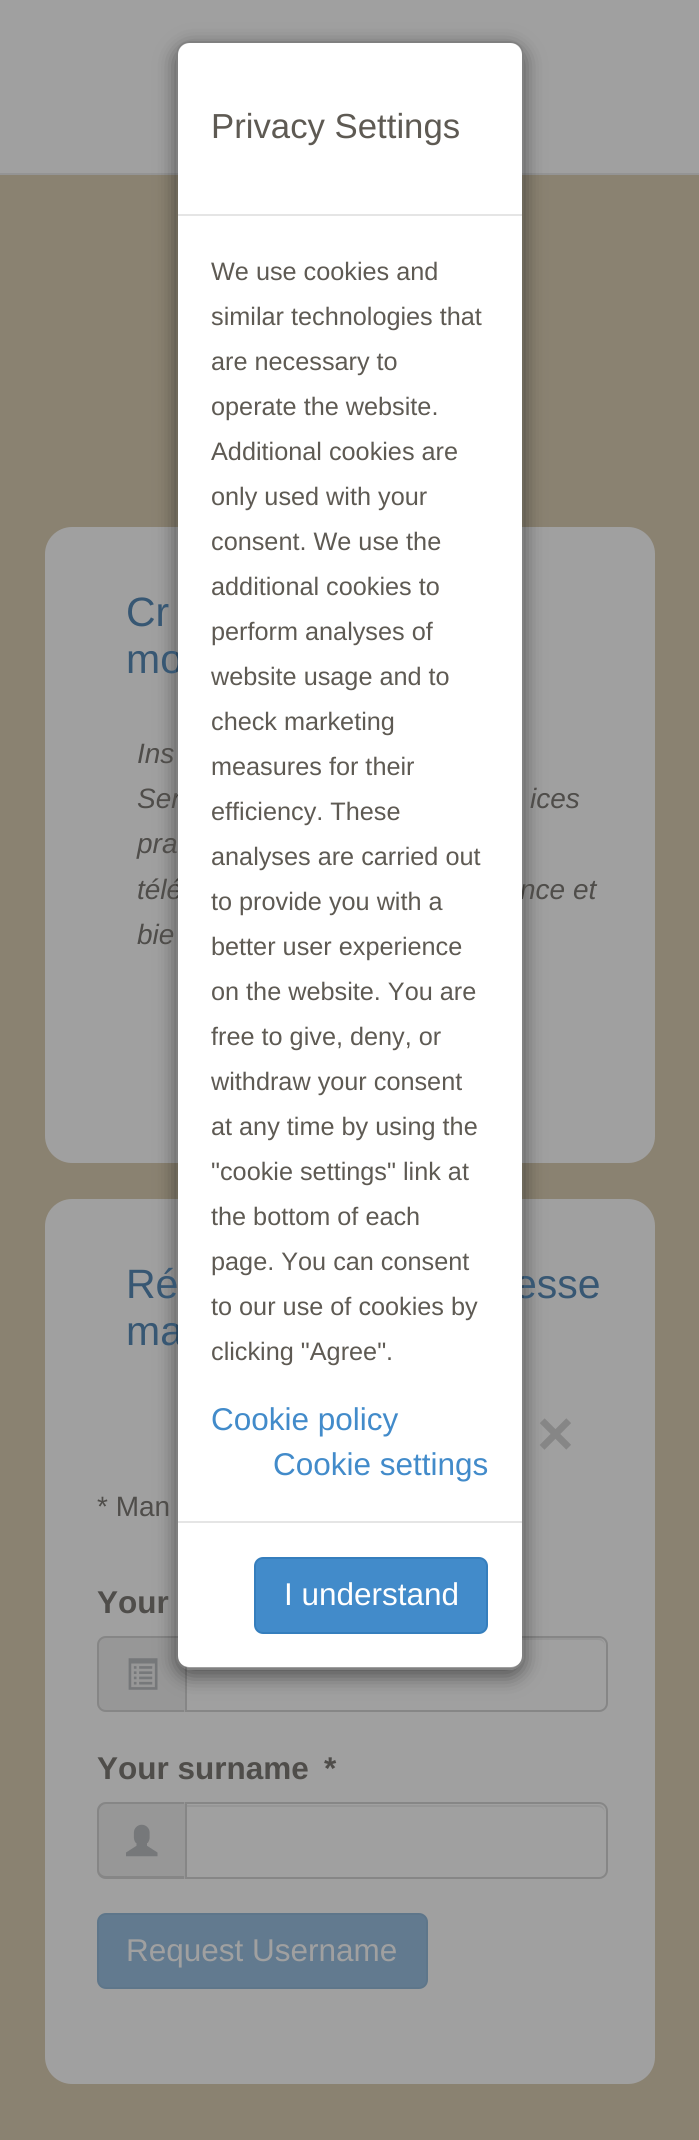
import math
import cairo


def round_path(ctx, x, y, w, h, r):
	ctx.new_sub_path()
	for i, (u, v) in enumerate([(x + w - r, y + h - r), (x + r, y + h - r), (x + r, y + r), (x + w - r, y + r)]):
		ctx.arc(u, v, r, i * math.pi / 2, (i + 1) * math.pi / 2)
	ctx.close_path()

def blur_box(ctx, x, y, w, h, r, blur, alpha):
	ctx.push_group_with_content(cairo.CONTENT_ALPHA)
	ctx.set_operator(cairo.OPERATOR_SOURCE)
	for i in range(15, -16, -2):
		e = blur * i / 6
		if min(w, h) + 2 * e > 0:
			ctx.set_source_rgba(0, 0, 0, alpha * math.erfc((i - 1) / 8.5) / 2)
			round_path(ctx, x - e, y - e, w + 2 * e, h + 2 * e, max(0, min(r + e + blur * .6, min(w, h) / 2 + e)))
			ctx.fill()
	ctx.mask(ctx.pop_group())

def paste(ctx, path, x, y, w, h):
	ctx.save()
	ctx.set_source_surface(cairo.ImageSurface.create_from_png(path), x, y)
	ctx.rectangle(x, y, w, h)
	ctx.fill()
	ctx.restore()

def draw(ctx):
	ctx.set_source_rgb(0.541, 0.51, 0.443)
	ctx.paint()
	ctx.set_source_rgb(0.627, 0.627, 0.627)
	ctx.rectangle(0, 0, 699, 173)
	ctx.fill()
	ctx.set_source_rgb(0.58, 0.58, 0.58)
	ctx.rectangle(0, 173, 699, 2)
	ctx.fill()
	ctx.set_source_rgb(0.627, 0.627, 0.627)
	round_path(ctx, 45, 527, 610, 636, 27)
	ctx.fill()
	round_path(ctx, 45, 1199, 610, 885, 27)
	ctx.fill()
	ctx.set_source_rgb(0.592, 0.592, 0.592)
	ctx.new_path()
	ctx.move_to(106, 1636)
	ctx.line_to(185, 1636)
	ctx.line_to(185, 1712)
	ctx.line_to(106, 1712)
	ctx.curve_to(101, 1712, 97, 1708, 97, 1703)
	ctx.line_to(97, 1645)
	ctx.curve_to(97, 1640, 101, 1636, 106, 1636)
	ctx.close_path()
	ctx.fill()
	ctx.set_source_rgb(0.525, 0.525, 0.525)
	ctx.set_fill_rule(cairo.FILL_RULE_EVEN_ODD)
	ctx.new_path()
	ctx.move_to(106, 1636)
	ctx.line_to(184, 1636)
	ctx.line_to(184, 1712)
	ctx.line_to(106, 1712)
	ctx.curve_to(101, 1712, 97, 1708, 97, 1703)
	ctx.line_to(97, 1645)
	ctx.curve_to(97, 1640, 101, 1636, 106, 1636)
	ctx.close_path()
	ctx.move_to(106, 1638)
	ctx.line_to(184, 1638)
	ctx.line_to(184, 1710)
	ctx.line_to(106, 1710)
	ctx.curve_to(102, 1710, 99, 1707, 99, 1703)
	ctx.line_to(99, 1645)
	ctx.curve_to(99, 1641, 102, 1638, 106, 1638)
	ctx.close_path()
	ctx.fill()
	paste(ctx, 'media/1.png', 128, 1658, 30, 32)
	ctx.set_source_rgb(0.588, 0.588, 0.588)
	ctx.set_fill_rule(cairo.FILL_RULE_WINDING)
	ctx.new_path()
	ctx.move_to(187, 1640)
	ctx.line_to(598, 1640)
	ctx.curve_to(602, 1640, 605, 1643, 605, 1647)
	ctx.curve_to(605, 1643, 603, 1638, 598, 1638)
	ctx.line_to(187, 1638)
	ctx.close_path()
	ctx.fill()
	ctx.new_path()
	ctx.move_to(186, 1637)
	ctx.line_to(599, 1637)
	ctx.curve_to(603.5, 1637, 607, 1640.5, 607, 1645)
	ctx.line_to(607, 1703)
	ctx.curve_to(607, 1707.5, 603.5, 1711, 599, 1711)
	ctx.line_to(186, 1711)
	ctx.close_path()
	ctx.set_source_rgb(0.525, 0.525, 0.525)
	ctx.stroke()
	ctx.save()
	ctx.set_fill_rule(cairo.FILL_RULE_EVEN_ODD)
	ctx.new_path()
	ctx.move_to(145, 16)
	ctx.line_to(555, 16)
	ctx.line_to(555, 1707)
	ctx.line_to(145, 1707)
	ctx.close_path()
	ctx.move_to(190, 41)
	ctx.line_to(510, 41)
	ctx.curve_to(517.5, 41, 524, 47.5, 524, 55)
	ctx.line_to(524, 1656)
	ctx.curve_to(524, 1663.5, 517.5, 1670, 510, 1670)
	ctx.line_to(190, 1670)
	ctx.curve_to(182.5, 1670, 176, 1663.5, 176, 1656)
	ctx.line_to(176, 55)
	ctx.curve_to(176, 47.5, 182.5, 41, 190, 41)
	ctx.close_path()
	ctx.clip()
	ctx.set_source_rgb(0, 0, 0)
	blur_box(ctx, 176, 47, 348, 1629, 14, 10, 0.5)
	ctx.restore()
	ctx.select_font_face('Liberation Sans')
	ctx.set_font_size(41)
	ctx.set_source_rgb(0.216, 0.341, 0.451)
	ctx.move_to(126, 673)
	ctx.show_text('mo')
	ctx.select_font_face('Liberation Sans', cairo.FONT_SLANT_ITALIC)
	ctx.set_font_size(28)
	ctx.set_source_rgb(0.31, 0.302, 0.29)
	for x, y, s in [
		(137, 808, 'Ser'),
		(137, 899, 'télé'),
		(520, 899, 'nce et'),
	]:
		ctx.move_to(x, y)
		ctx.show_text(s)
	ctx.select_font_face('Liberation Sans')
	ctx.set_font_size(41)
	ctx.set_source_rgb(0.216, 0.341, 0.451)
	ctx.move_to(514, 1298)
	ctx.show_text('esse')
	ctx.move_to(126, 1345)
	ctx.show_text('ma')
	ctx.set_source_rgb(1, 1, 1)
	round_path(ctx, 178, 43, 344, 1624, 11)
	ctx.fill()
	ctx.select_font_face('Liberation Sans', cairo.FONT_SLANT_ITALIC)
	ctx.set_font_size(28)
	ctx.set_source_rgb(0.31, 0.302, 0.29)
	ctx.move_to(137, 853)
	ctx.show_text('pra')
	ctx.select_font_face('Liberation Sans')
	ctx.set_font_size(41)
	ctx.set_source_rgb(0.216, 0.341, 0.451)
	ctx.move_to(126, 1298)
	ctx.show_text('Ré')
	round_path(ctx, 177, 42, 346, 1627, 13)
	ctx.set_source_rgba(0, 0, 0, 0.2)
	ctx.stroke()
	ctx.set_source_rgb(0.898, 0.898, 0.898)
	ctx.rectangle(178, 214, 344, 2)
	ctx.fill()
	ctx.set_font_size(34.75)
	ctx.set_source_rgb(0.369, 0.353, 0.325)
	ctx.move_to(211, 138)
	ctx.show_text('Privacy Settings')
	ctx.set_font_size(25.25)
	for x, y, s in [
		(211, 280, 'We use cookies and'),
		(211, 325, 'similar technologies that'),
		(211, 370, 'are necessary to'),
		(211, 415, 'operate the website.'),
		(211, 460, 'Additional cookies are'),
		(211, 505, 'only used with your'),
		(211, 550, 'consent. We use the'),
		(211, 595, 'additional cookies to'),
		(211, 640, 'perform analyses of'),
		(211, 685, 'website usage and to'),
		(211, 730, 'check marketing'),
		(211, 775, 'measures for their'),
		(211, 820, 'efficiency. These'),
		(211, 865, 'analyses are carried out'),
		(211, 910, 'to provide you with a'),
		(211, 955, 'better user experience'),
		(211, 1000, 'on the website. You are'),
		(211, 1045, 'free to give, deny, or'),
		(211, 1090, 'withdraw your consent'),
		(211, 1135, 'at any time by using the'),
		(211, 1180, '"cookie settings" link at'),
		(211, 1225, 'the bottom of each'),
		(211, 1270, 'page. You can consent'),
		(211, 1315, 'to our use of cookies by'),
		(211, 1360, 'clicking "Agree".'),
	]:
		ctx.move_to(x, y)
		ctx.show_text(s)
	ctx.set_font_size(31.5)
	ctx.set_source_rgb(0.259, 0.545, 0.792)
	ctx.move_to(211, 1430)
	ctx.show_text('Cookie policy')
	ctx.move_to(273, 1475)
	ctx.show_text('Cookie settings')
	ctx.set_source_rgb(0.898, 0.898, 0.898)
	ctx.rectangle(178, 1521, 344, 2)
	ctx.fill()
	ctx.set_source_rgb(0.259, 0.545, 0.792)
	round_path(ctx, 255, 1558, 232, 75, 8)
	ctx.fill_preserve()
	ctx.set_source_rgb(0.208, 0.494, 0.741)
	ctx.stroke()
	ctx.set_source_rgb(1, 1, 1)
	ctx.move_to(284, 1605)
	ctx.show_text('I understand')
	ctx.set_font_size(41)
	ctx.set_source_rgb(0.216, 0.341, 0.451)
	ctx.move_to(126, 626)
	ctx.show_text('Cr')
	ctx.select_font_face('Liberation Sans', cairo.FONT_SLANT_ITALIC)
	ctx.set_font_size(28)
	ctx.set_source_rgb(0.31, 0.302, 0.29)
	for x, y, s in [
		(137, 763, 'Ins'),
		(530, 808, 'ices'),
		(137, 944, 'bie'),
	]:
		ctx.move_to(x, y)
		ctx.show_text(s)
	ctx.select_font_face('Liberation Sans', cairo.FONT_SLANT_NORMAL, cairo.FONT_WEIGHT_BOLD)
	ctx.set_font_size(63)
	ctx.set_source_rgb(0.525, 0.525, 0.525)
	ctx.move_to(537, 1455)
	ctx.show_text('×')
	ctx.select_font_face('Liberation Sans')
	ctx.set_font_size(28)
	ctx.set_source_rgb(0.31, 0.302, 0.29)
	ctx.move_to(97, 1516)
	ctx.show_text('* Man')
	ctx.select_font_face('Liberation Sans', cairo.FONT_SLANT_NORMAL, cairo.FONT_WEIGHT_BOLD)
	ctx.set_font_size(31.5)
	for x, y, s in [
		(97, 1613, 'Your'),
		(97, 1779, 'Your surname'),
		(324, 1779, '*'),
	]:
		ctx.move_to(x, y)
		ctx.show_text(s)
	ctx.set_source_rgb(0.592, 0.592, 0.592)
	ctx.new_path()
	ctx.move_to(106, 1802)
	ctx.line_to(185, 1802)
	ctx.line_to(185, 1879)
	ctx.line_to(106, 1879)
	ctx.curve_to(101, 1879, 97, 1875, 97, 1870)
	ctx.line_to(97, 1811)
	ctx.curve_to(97, 1806, 101, 1802, 106, 1802)
	ctx.close_path()
	ctx.fill()
	ctx.set_source_rgb(0.525, 0.525, 0.525)
	ctx.set_fill_rule(cairo.FILL_RULE_EVEN_ODD)
	ctx.new_path()
	ctx.move_to(106, 1802)
	ctx.line_to(184, 1802)
	ctx.line_to(184, 1879)
	ctx.line_to(106, 1879)
	ctx.curve_to(101, 1879, 97, 1875, 97, 1870)
	ctx.line_to(97, 1811)
	ctx.curve_to(97, 1806, 101, 1802, 106, 1802)
	ctx.close_path()
	ctx.move_to(106, 1804)
	ctx.line_to(184, 1804)
	ctx.line_to(184, 1876)
	ctx.line_to(106, 1876)
	ctx.curve_to(102, 1876, 99, 1873, 99, 1870)
	ctx.line_to(99, 1811)
	ctx.curve_to(99, 1808, 102, 1804, 106, 1804)
	ctx.close_path()
	ctx.fill()
	paste(ctx, 'media/2.png', 126, 1824, 32, 33)
	ctx.set_source_rgb(0.588, 0.588, 0.588)
	ctx.set_fill_rule(cairo.FILL_RULE_WINDING)
	ctx.new_path()
	ctx.move_to(187, 1807)
	ctx.line_to(598, 1807)
	ctx.curve_to(602, 1807, 605, 1810, 605, 1814)
	ctx.curve_to(605, 1810, 603, 1805, 598, 1805)
	ctx.line_to(187, 1805)
	ctx.close_path()
	ctx.fill()
	ctx.new_path()
	ctx.move_to(186, 1803)
	ctx.line_to(599, 1803)
	ctx.curve_to(603.5, 1803, 607, 1806.5, 607, 1811)
	ctx.line_to(607, 1870)
	ctx.curve_to(607, 1874.5, 603.5, 1878, 599, 1878)
	ctx.line_to(186, 1878)
	ctx.close_path()
	ctx.set_source_rgb(0.525, 0.525, 0.525)
	ctx.stroke()
	ctx.set_source_rgb(0.384, 0.478, 0.561)
	round_path(ctx, 98, 1914, 329, 74, 8)
	ctx.fill_preserve()
	ctx.set_source_rgb(0.369, 0.463, 0.541)
	ctx.stroke()
	ctx.select_font_face('Liberation Sans')
	ctx.set_source_rgb(0.627, 0.627, 0.627)
	ctx.move_to(126, 1961)
	ctx.show_text('Request Username')


surface = cairo.ImageSurface(cairo.FORMAT_RGB24, 699, 2140)
ctx = cairo.Context(surface)
options = cairo.FontOptions()
options.set_hint_metrics(cairo.HINT_METRICS_OFF)
options.set_hint_style(cairo.HINT_STYLE_NONE)
ctx.set_font_options(options)
ctx.set_miter_limit(4)
draw(ctx)
surface.write_to_png('image.png')
